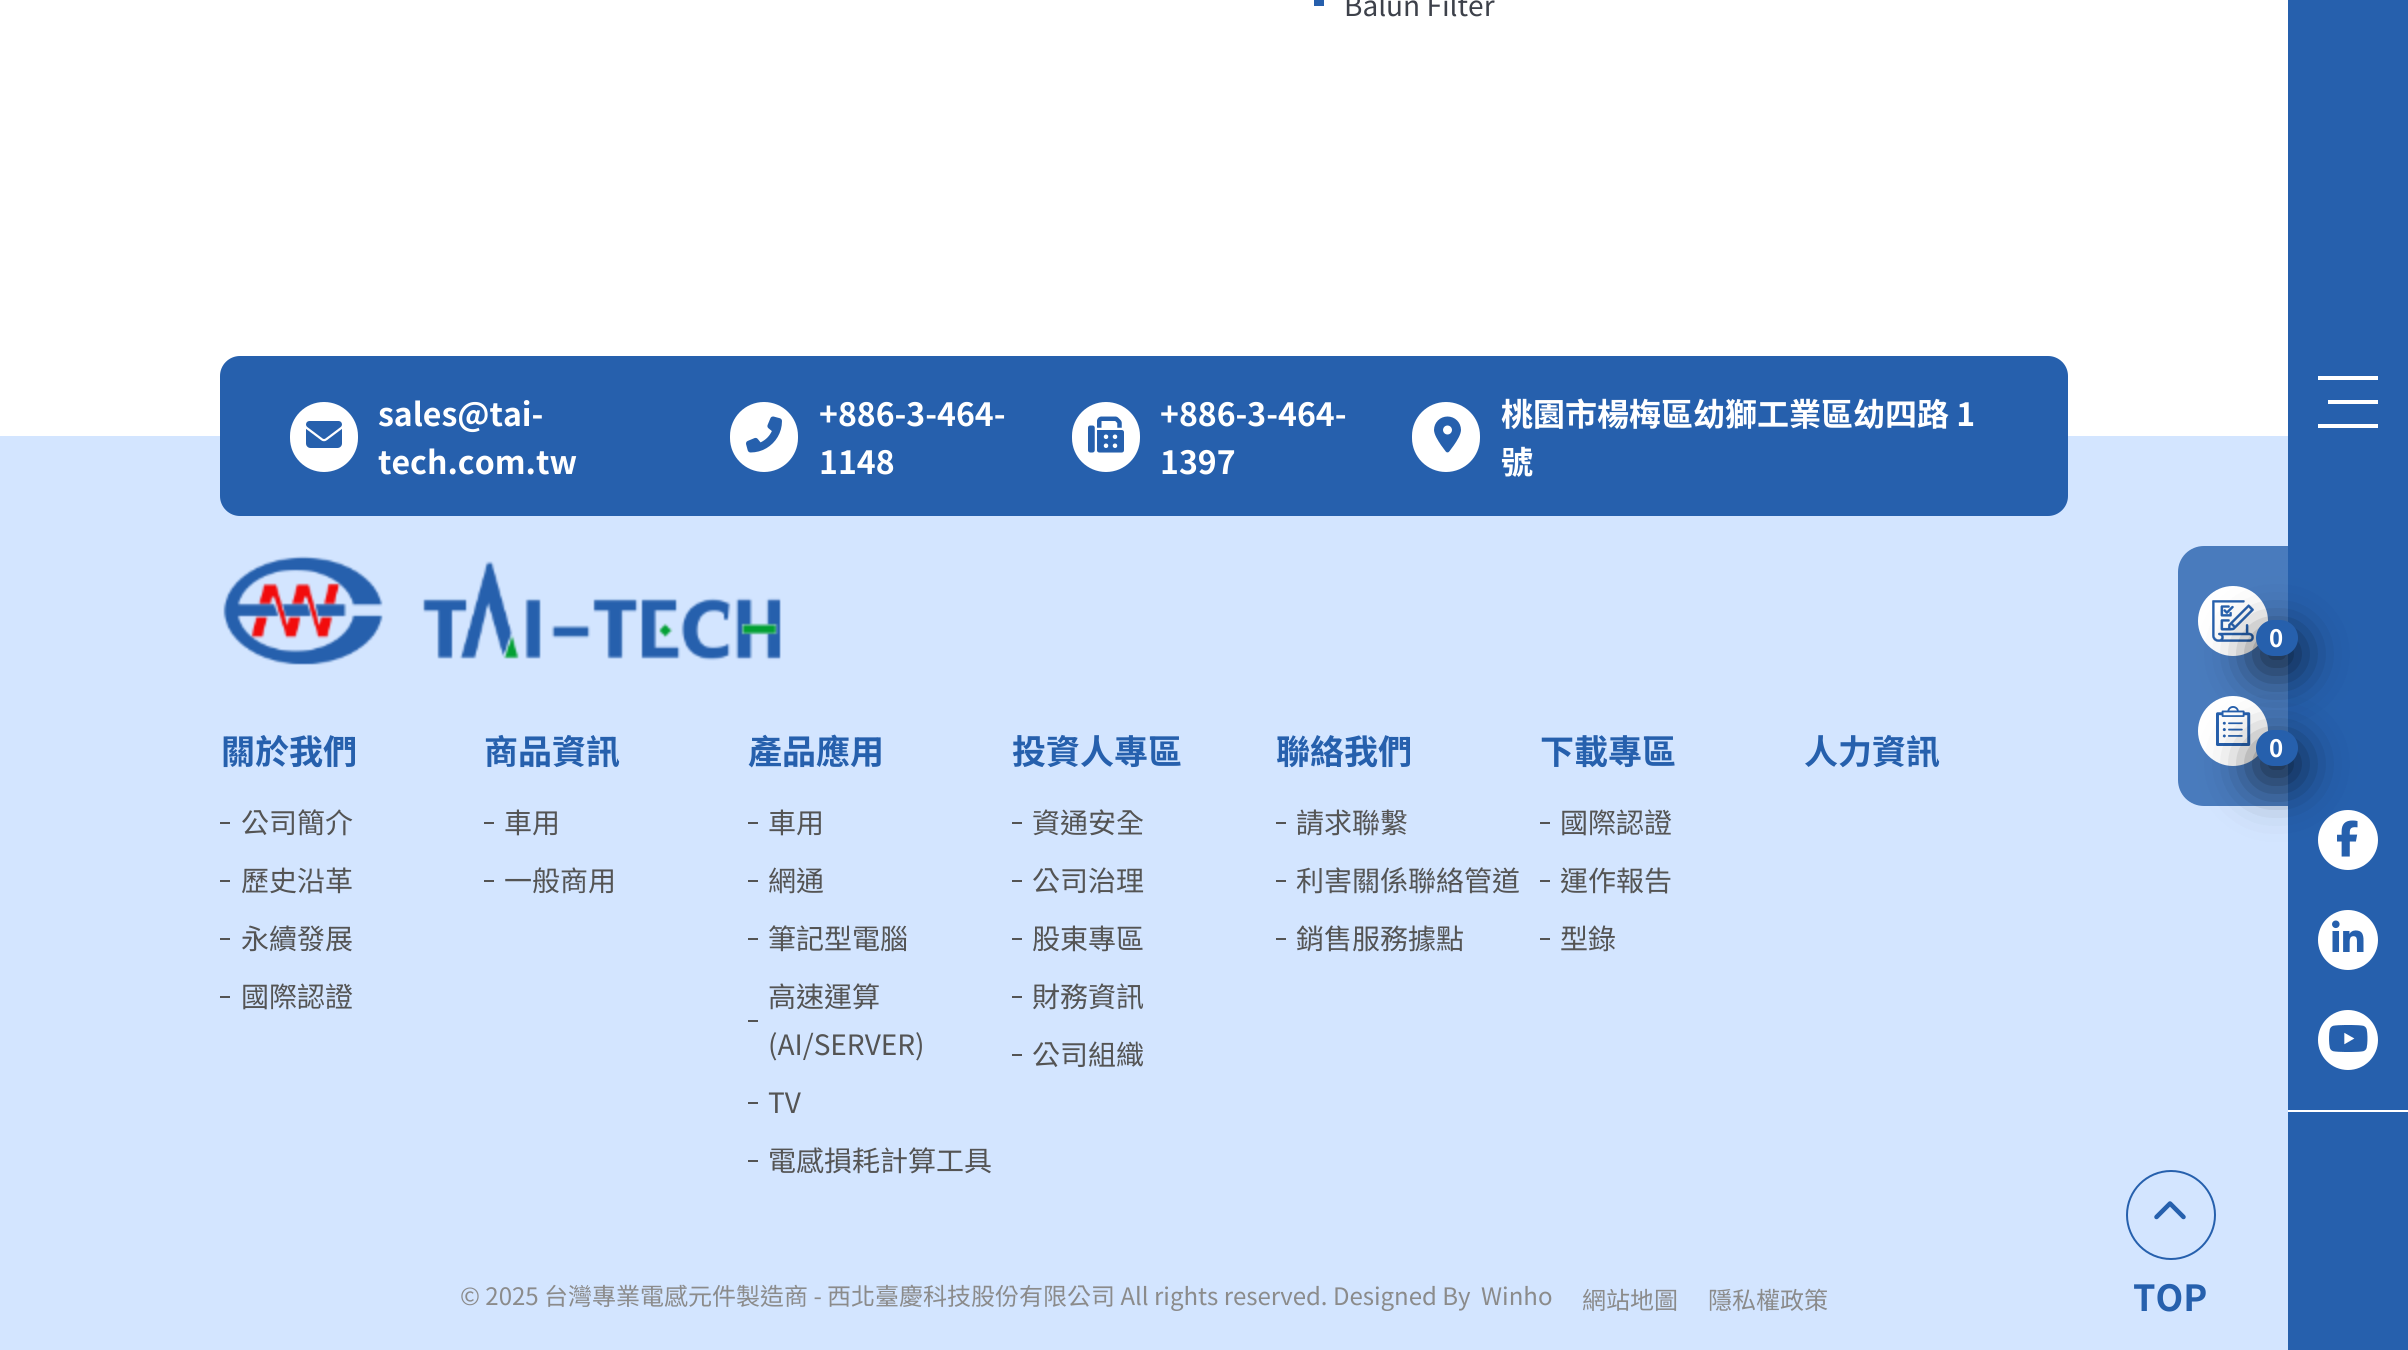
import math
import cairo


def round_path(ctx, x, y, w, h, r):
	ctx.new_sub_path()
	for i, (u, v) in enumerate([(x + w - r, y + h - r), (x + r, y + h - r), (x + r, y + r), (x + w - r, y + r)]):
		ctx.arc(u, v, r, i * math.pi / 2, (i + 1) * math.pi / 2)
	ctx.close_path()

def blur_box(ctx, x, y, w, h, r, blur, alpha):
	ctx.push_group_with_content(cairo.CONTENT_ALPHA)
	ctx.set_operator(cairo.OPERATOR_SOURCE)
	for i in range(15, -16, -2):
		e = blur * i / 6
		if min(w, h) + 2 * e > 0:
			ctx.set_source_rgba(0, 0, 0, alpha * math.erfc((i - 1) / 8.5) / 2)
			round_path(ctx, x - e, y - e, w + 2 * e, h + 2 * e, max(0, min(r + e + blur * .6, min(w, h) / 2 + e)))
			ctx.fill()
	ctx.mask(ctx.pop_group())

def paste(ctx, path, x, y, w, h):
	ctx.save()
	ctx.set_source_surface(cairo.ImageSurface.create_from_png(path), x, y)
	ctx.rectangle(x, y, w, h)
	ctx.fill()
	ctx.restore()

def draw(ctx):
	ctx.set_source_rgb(1, 1, 1)
	ctx.paint()
	ctx.set_source_rgb(0.149, 0.373, 0.675)
	ctx.rectangle(1314, 0, 10, 6)
	ctx.fill()
	ctx.select_font_face('Noto Sans TC')
	ctx.set_font_size(28)
	ctx.set_source_rgb(0.239, 0.255, 0.29)
	ctx.move_to(1344, 16)
	ctx.show_text('Balun Filter')
	ctx.set_source_rgb(0.827, 0.898, 1)
	ctx.rectangle(0, 436, 2288, 914)
	ctx.fill()
	ctx.set_source_rgb(0.149, 0.376, 0.678)
	round_path(ctx, 220, 356, 1848, 160, 20)
	ctx.fill()
	ctx.set_source_rgb(1, 1, 1)
	round_path(ctx, 290, 402, 68, 70, 34)
	ctx.fill()
	paste(ctx, 'media/1.png', 306, 421, 36, 27)
	ctx.select_font_face('Noto Sans TC', cairo.FONT_SLANT_NORMAL, cairo.FONT_WEIGHT_BOLD)
	ctx.set_font_size(32)
	ctx.move_to(378, 426)
	ctx.show_text('sales@tai-')
	ctx.move_to(378, 474)
	ctx.show_text('tech.com.tw')
	round_path(ctx, 730, 402, 68, 70, 34)
	ctx.fill()
	paste(ctx, 'media/2.png', 746, 416, 36, 37)
	ctx.move_to(819, 426)
	ctx.show_text('+886-3-464-')
	ctx.move_to(819, 474)
	ctx.show_text('1148')
	round_path(ctx, 1072, 402, 68, 70, 34)
	ctx.fill()
	paste(ctx, 'media/3.png', 1088, 416, 36, 37)
	ctx.move_to(1160, 426)
	ctx.show_text('+886-3-464-')
	ctx.move_to(1160, 474)
	ctx.show_text('1397')
	round_path(ctx, 1412, 402, 68, 70, 34)
	ctx.fill()
	paste(ctx, 'media/4.png', 1434, 416, 27, 37)
	ctx.move_to(1501, 426)
	ctx.show_text('桃園市楊梅區幼獅工業區幼四路 1')
	ctx.move_to(1501, 474)
	ctx.show_text('號')
	paste(ctx, 'media/5.png', 223, 556, 558, 109)
	ctx.set_font_size(34)
	ctx.set_source_rgb(0.149, 0.376, 0.678)
	ctx.move_to(221, 764)
	ctx.show_text('關於我們')
	ctx.set_source_rgb(0.329, 0.329, 0.329)
	ctx.rectangle(220, 822, 10, 2)
	ctx.fill()
	ctx.select_font_face('Noto Sans TC')
	ctx.set_font_size(28)
	ctx.move_to(241, 833)
	ctx.show_text('公司簡介')
	ctx.rectangle(220, 880, 10, 2)
	ctx.fill()
	ctx.move_to(241, 891)
	ctx.show_text('歷史沿革')
	ctx.rectangle(220, 938, 10, 2)
	ctx.fill()
	ctx.move_to(241, 949)
	ctx.show_text('永續發展')
	ctx.rectangle(220, 996, 10, 2)
	ctx.fill()
	ctx.move_to(241, 1007)
	ctx.show_text('國際認證')
	ctx.select_font_face('Noto Sans TC', cairo.FONT_SLANT_NORMAL, cairo.FONT_WEIGHT_BOLD)
	ctx.set_font_size(34)
	ctx.set_source_rgb(0.149, 0.376, 0.678)
	ctx.move_to(484, 764)
	ctx.show_text('商品資訊')
	ctx.set_source_rgb(0.329, 0.329, 0.329)
	ctx.rectangle(484, 822, 10, 2)
	ctx.fill()
	ctx.select_font_face('Noto Sans TC')
	ctx.set_font_size(28)
	ctx.move_to(504, 833)
	ctx.show_text('車用')
	ctx.rectangle(484, 880, 10, 2)
	ctx.fill()
	ctx.move_to(504, 891)
	ctx.show_text('一般商用')
	ctx.select_font_face('Noto Sans TC', cairo.FONT_SLANT_NORMAL, cairo.FONT_WEIGHT_BOLD)
	ctx.set_font_size(34)
	ctx.set_source_rgb(0.149, 0.376, 0.678)
	ctx.move_to(748, 764)
	ctx.show_text('產品應用')
	ctx.set_source_rgb(0.329, 0.329, 0.329)
	ctx.rectangle(748, 822, 10, 2)
	ctx.fill()
	ctx.select_font_face('Noto Sans TC')
	ctx.set_font_size(28)
	ctx.move_to(768, 833)
	ctx.show_text('車用')
	ctx.rectangle(748, 880, 10, 2)
	ctx.fill()
	ctx.move_to(768, 891)
	ctx.show_text('網通')
	ctx.rectangle(748, 938, 10, 2)
	ctx.fill()
	ctx.move_to(768, 949)
	ctx.show_text('筆記型電腦')
	ctx.move_to(768, 1007)
	ctx.show_text('高速運算')
	ctx.rectangle(748, 1020, 10, 2)
	ctx.fill()
	ctx.move_to(768, 1055)
	ctx.show_text('(AI/SERVER)')
	ctx.rectangle(748, 1102, 10, 2)
	ctx.fill()
	ctx.move_to(768, 1113)
	ctx.show_text('TV')
	ctx.rectangle(748, 1160, 10, 2)
	ctx.fill()
	ctx.move_to(768, 1171)
	ctx.show_text('電感損耗計算工具')
	ctx.select_font_face('Noto Sans TC', cairo.FONT_SLANT_NORMAL, cairo.FONT_WEIGHT_BOLD)
	ctx.set_font_size(34)
	ctx.set_source_rgb(0.149, 0.376, 0.678)
	ctx.move_to(1012, 764)
	ctx.show_text('投資人專區')
	ctx.set_source_rgb(0.329, 0.329, 0.329)
	ctx.rectangle(1012, 822, 10, 2)
	ctx.fill()
	ctx.select_font_face('Noto Sans TC')
	ctx.set_font_size(28)
	ctx.move_to(1032, 833)
	ctx.show_text('資通安全')
	ctx.rectangle(1012, 880, 10, 2)
	ctx.fill()
	ctx.move_to(1032, 891)
	ctx.show_text('公司治理')
	ctx.rectangle(1012, 938, 10, 2)
	ctx.fill()
	ctx.move_to(1032, 949)
	ctx.show_text('股東專區')
	ctx.rectangle(1012, 996, 10, 2)
	ctx.fill()
	ctx.move_to(1032, 1007)
	ctx.show_text('財務資訊')
	ctx.rectangle(1012, 1054, 10, 2)
	ctx.fill()
	ctx.move_to(1032, 1065)
	ctx.show_text('公司組織')
	ctx.select_font_face('Noto Sans TC', cairo.FONT_SLANT_NORMAL, cairo.FONT_WEIGHT_BOLD)
	ctx.set_font_size(34)
	ctx.set_source_rgb(0.149, 0.376, 0.678)
	ctx.move_to(1276, 764)
	ctx.show_text('聯絡我們')
	ctx.set_source_rgb(0.329, 0.329, 0.329)
	ctx.rectangle(1276, 822, 10, 2)
	ctx.fill()
	ctx.select_font_face('Noto Sans TC')
	ctx.set_font_size(28)
	ctx.move_to(1296, 833)
	ctx.show_text('請求聯繫')
	ctx.rectangle(1276, 880, 10, 2)
	ctx.fill()
	ctx.move_to(1296, 891)
	ctx.show_text('利害關係聯絡管道')
	ctx.rectangle(1276, 938, 10, 2)
	ctx.fill()
	ctx.move_to(1296, 949)
	ctx.show_text('銷售服務據點')
	ctx.select_font_face('Noto Sans TC', cairo.FONT_SLANT_NORMAL, cairo.FONT_WEIGHT_BOLD)
	ctx.set_font_size(34)
	ctx.set_source_rgb(0.149, 0.376, 0.678)
	ctx.move_to(1540, 764)
	ctx.show_text('下載專區')
	ctx.set_source_rgb(0.329, 0.329, 0.329)
	ctx.rectangle(1540, 822, 10, 2)
	ctx.fill()
	ctx.select_font_face('Noto Sans TC')
	ctx.set_font_size(28)
	ctx.move_to(1560, 833)
	ctx.show_text('國際認證')
	ctx.rectangle(1540, 880, 10, 2)
	ctx.fill()
	ctx.move_to(1560, 891)
	ctx.show_text('運作報告')
	ctx.rectangle(1540, 938, 10, 2)
	ctx.fill()
	ctx.move_to(1560, 949)
	ctx.show_text('型錄')
	ctx.select_font_face('Noto Sans TC', cairo.FONT_SLANT_NORMAL, cairo.FONT_WEIGHT_BOLD)
	ctx.set_font_size(34)
	ctx.set_source_rgb(0.149, 0.376, 0.678)
	ctx.move_to(1804, 764)
	ctx.show_text('人力資訊')
	ctx.select_font_face('Noto Sans TC')
	ctx.set_font_size(24)
	ctx.set_source_rgb(0.545, 0.545, 0.545)
	for x, y, s in [
		(460, 1305, '© 2025 台灣專業電感元件製造商 - 西北臺慶科技股份有限公司 All rights reserved. Designed By'),
		(1481, 1305, 'Winho'),
		(1582, 1309, '網站地圖'),
		(1708, 1309, '隱私權政策'),
	]:
		ctx.move_to(x, y)
		ctx.show_text(s)
	ctx.set_source_rgb(0.149, 0.376, 0.678)
	ctx.rectangle(2288, 0, 120, 1350)
	ctx.fill()
	ctx.set_source_rgb(1, 1, 1)
	ctx.rectangle(2318, 376, 60, 4)
	ctx.rectangle(2328, 400, 50, 4)
	ctx.rectangle(2318, 424, 60, 4)
	ctx.fill()
	ctx.set_source_rgb(0.286, 0.482, 0.741)
	ctx.new_path()
	ctx.move_to(2204, 546)
	ctx.line_to(2288, 546)
	ctx.line_to(2288, 806)
	ctx.line_to(2204, 806)
	ctx.curve_to(2189.5, 806, 2178, 794.5, 2178, 780)
	ctx.line_to(2178, 572)
	ctx.curve_to(2178, 557.5, 2189.5, 546, 2204, 546)
	ctx.close_path()
	ctx.fill()
	ctx.set_source_rgb(1, 1, 1)
	ctx.arc(2233, 621, 35, 0, 2 * math.pi)
	ctx.fill()
	paste(ctx, 'media/6.png', 2212, 600, 42, 42)
	ctx.set_source_rgb(0, 0, 0)
	blur_box(ctx, 2256, 636, 42, 36, 18, 24, 0.7)
	ctx.set_source_rgb(0.149, 0.376, 0.678)
	round_path(ctx, 2256, 620, 42, 36, 18)
	ctx.fill()
	ctx.select_font_face('Noto Sans TC', cairo.FONT_SLANT_NORMAL, cairo.FONT_WEIGHT_BOLD)
	ctx.set_source_rgb(1, 1, 1)
	ctx.move_to(2269, 647)
	ctx.show_text('0')
	ctx.new_path()
	ctx.arc(2233, 731, 35, 0, 2 * math.pi)
	ctx.fill()
	paste(ctx, 'media/7.png', 2216, 706, 35, 40)
	ctx.arc(2348, 840, 30, 0, 2 * math.pi)
	ctx.fill()
	paste(ctx, 'media/8.png', 2337, 820, 21, 37)
	ctx.set_source_rgb(0, 0, 0)
	blur_box(ctx, 2256, 746, 42, 36, 18, 24, 0.7)
	ctx.set_source_rgb(0.149, 0.376, 0.678)
	round_path(ctx, 2256, 730, 42, 36, 18)
	ctx.fill()
	ctx.set_source_rgb(1, 1, 1)
	ctx.move_to(2269, 757)
	ctx.show_text('0')
	ctx.rectangle(2288, 1110, 120, 2)
	ctx.fill()
	ctx.arc(2348, 940, 30, 0, 2 * math.pi)
	ctx.fill()
	paste(ctx, 'media/9.png', 2332, 920, 32, 32)
	ctx.arc(2348, 1040, 30, 0, 2 * math.pi)
	ctx.fill()
	paste(ctx, 'media/10.png', 2329, 1025, 39, 27)
	ctx.arc(2171, 1215, 44, 0, 2 * math.pi)
	ctx.set_source_rgb(0.149, 0.376, 0.678)
	ctx.stroke()
	paste(ctx, 'media/11.png', 2154, 1201, 32, 19)
	ctx.set_font_size(36)
	ctx.move_to(2133, 1311)
	ctx.show_text('TOP')


surface = cairo.ImageSurface(cairo.FORMAT_RGB24, 2408, 1350)
ctx = cairo.Context(surface)
options = cairo.FontOptions()
options.set_hint_metrics(cairo.HINT_METRICS_OFF)
options.set_hint_style(cairo.HINT_STYLE_NONE)
ctx.set_font_options(options)
ctx.set_miter_limit(4)
draw(ctx)
surface.write_to_png('image.png')
